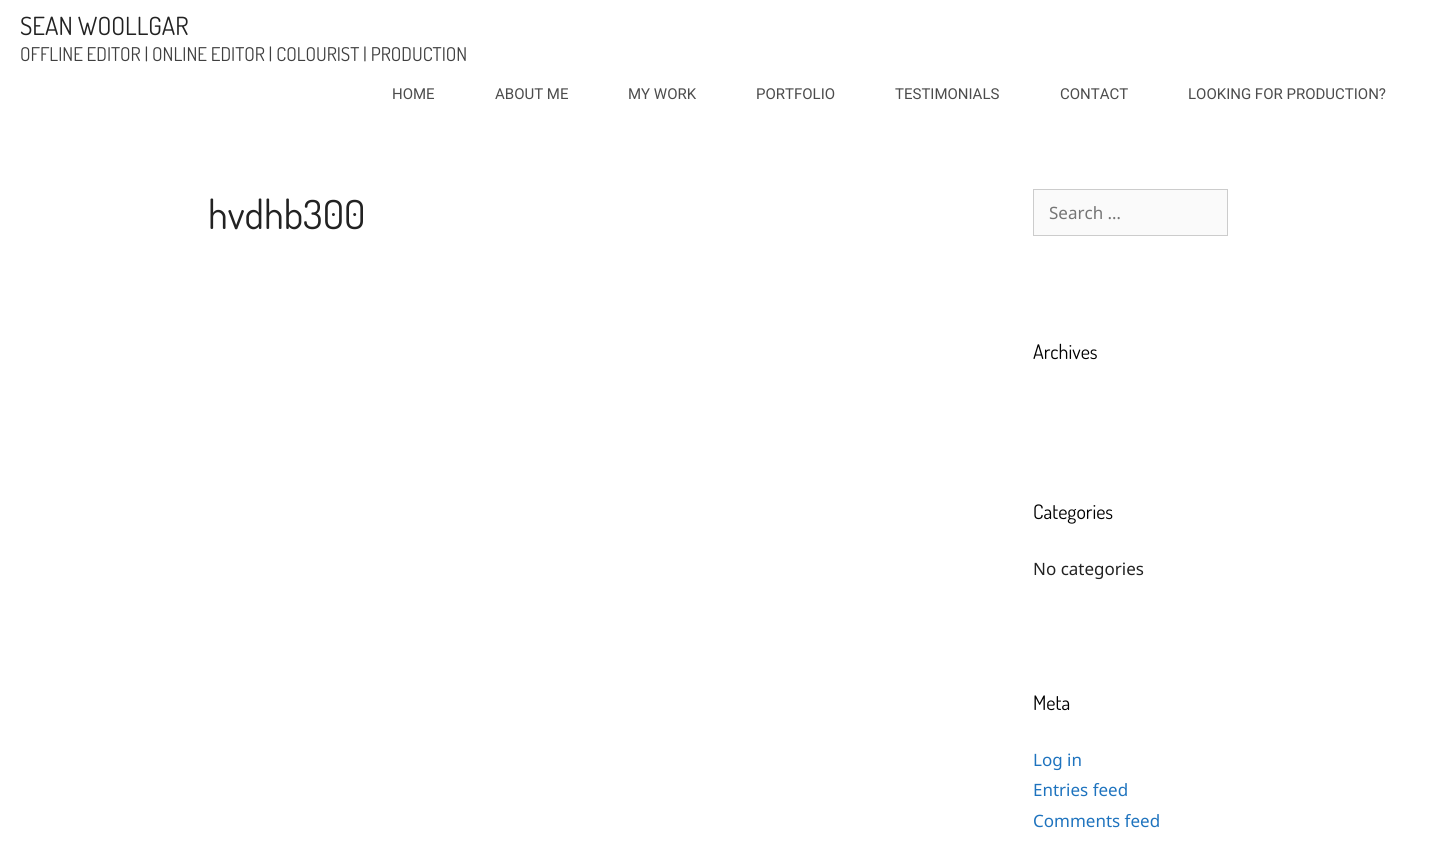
import math
import cairo


def draw(ctx):
	ctx.set_source_rgb(1, 1, 1)
	ctx.paint()
	ctx.select_font_face('Dosis')
	ctx.set_font_size(25)
	ctx.set_source_rgb(0.133, 0.133, 0.133)
	ctx.move_to(20, 35)
	ctx.show_text('SEAN WOOLLGAR')
	ctx.set_font_size(19)
	ctx.set_source_rgb(0.247, 0.247, 0.247)
	ctx.move_to(20, 61)
	ctx.show_text('OFFLINE EDITOR | ONLINE EDITOR | COLOURIST | PRODUCTION')
	ctx.select_font_face('Roboto')
	ctx.set_font_size(15)
	ctx.set_source_rgb(0.298, 0.298, 0.298)
	for x, y, s in [
		(392, 99, 'HOME'),
		(495, 99, 'ABOUT ME'),
		(628, 99, 'MY WORK'),
		(756, 99, 'PORTFOLIO'),
		(895, 99, 'TESTIMONIALS'),
		(1060, 99, 'CONTACT'),
		(1188, 99, 'LOOKING FOR PRODUCTION?'),
	]:
		ctx.move_to(x, y)
		ctx.show_text(s)
	ctx.select_font_face('Dosis')
	ctx.set_font_size(40)
	ctx.set_source_rgb(0.133, 0.133, 0.133)
	ctx.move_to(208, 229)
	ctx.show_text('hvdhb300')
	ctx.set_source_rgb(0.98, 0.98, 0.98)
	ctx.rectangle(1033.5, 189.5, 194, 46)
	ctx.fill_preserve()
	ctx.set_source_rgb(0.8, 0.8, 0.8)
	ctx.set_line_width(1)
	ctx.stroke()
	ctx.select_font_face('Noto Sans')
	ctx.set_font_size(17)
	ctx.set_source_rgb(0.459, 0.459, 0.459)
	ctx.move_to(1049, 219)
	ctx.show_text('Search …')
	ctx.select_font_face('Dosis')
	ctx.set_font_size(20)
	ctx.set_source_rgb(0, 0, 0)
	ctx.move_to(1033, 359)
	ctx.show_text('Archives')
	ctx.move_to(1033, 519)
	ctx.show_text('Categories')
	ctx.select_font_face('Noto Sans')
	ctx.set_font_size(17)
	ctx.set_source_rgb(0.133, 0.133, 0.133)
	ctx.move_to(1033, 575)
	ctx.show_text('No categories')
	ctx.select_font_face('Dosis')
	ctx.set_font_size(20)
	ctx.set_source_rgb(0, 0, 0)
	ctx.move_to(1033, 710)
	ctx.show_text('Meta')
	ctx.select_font_face('Noto Sans')
	ctx.set_font_size(17)
	ctx.set_source_rgb(0.118, 0.451, 0.745)
	for x, y, s in [
		(1033, 766, 'Log in'),
		(1033, 796, 'Entries feed'),
		(1033, 827, 'Comments feed'),
	]:
		ctx.move_to(x, y)
		ctx.show_text(s)


surface = cairo.ImageSurface(cairo.FORMAT_RGB24, 1436, 847)
ctx = cairo.Context(surface)
options = cairo.FontOptions()
options.set_hint_metrics(cairo.HINT_METRICS_OFF)
options.set_hint_style(cairo.HINT_STYLE_NONE)
ctx.set_font_options(options)
ctx.set_miter_limit(4)
draw(ctx)
surface.write_to_png('image.png')
